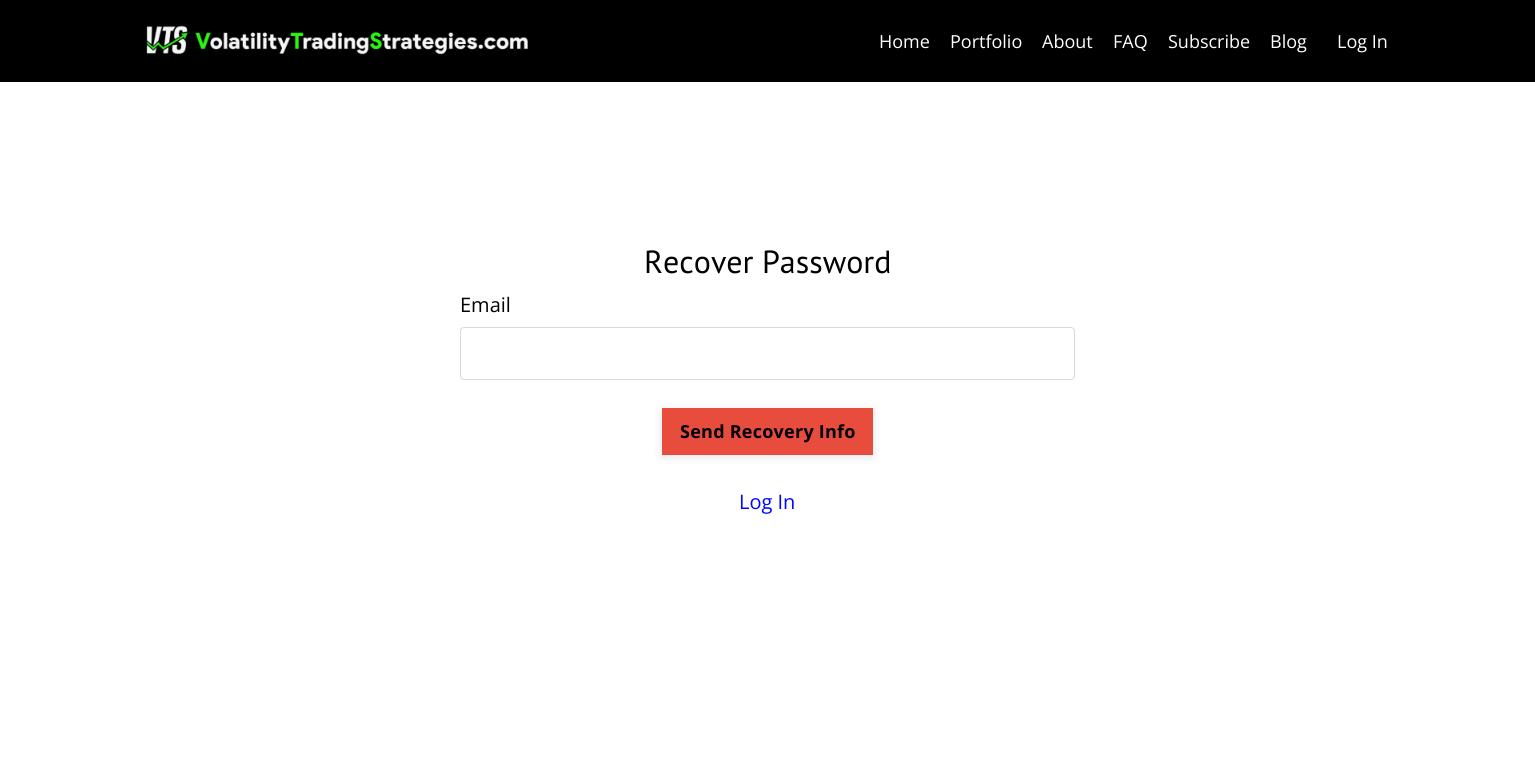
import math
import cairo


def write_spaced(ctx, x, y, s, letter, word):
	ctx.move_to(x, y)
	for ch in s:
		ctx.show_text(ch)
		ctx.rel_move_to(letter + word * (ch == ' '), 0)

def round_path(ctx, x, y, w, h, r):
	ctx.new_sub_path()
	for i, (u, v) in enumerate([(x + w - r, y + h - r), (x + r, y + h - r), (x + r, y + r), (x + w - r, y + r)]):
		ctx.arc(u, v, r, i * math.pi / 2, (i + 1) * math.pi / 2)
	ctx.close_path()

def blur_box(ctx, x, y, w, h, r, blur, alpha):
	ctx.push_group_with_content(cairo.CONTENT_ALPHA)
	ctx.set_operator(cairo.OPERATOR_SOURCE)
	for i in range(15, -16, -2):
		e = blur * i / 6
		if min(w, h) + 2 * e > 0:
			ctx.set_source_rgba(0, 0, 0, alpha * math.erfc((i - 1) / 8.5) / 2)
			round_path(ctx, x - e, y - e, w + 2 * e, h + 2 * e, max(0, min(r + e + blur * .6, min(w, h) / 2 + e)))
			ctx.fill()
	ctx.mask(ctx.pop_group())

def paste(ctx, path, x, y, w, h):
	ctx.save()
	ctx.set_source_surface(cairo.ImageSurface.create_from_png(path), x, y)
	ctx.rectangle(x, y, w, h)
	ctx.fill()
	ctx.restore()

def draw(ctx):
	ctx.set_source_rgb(1, 1, 1)
	ctx.paint()
	ctx.set_source_rgb(0, 0, 0)
	ctx.rectangle(0, 0, 1535, 82)
	ctx.fill()
	paste(ctx, 'media/1.png', 145, 25, 383, 30)
	ctx.select_font_face('Open Sans')
	ctx.set_font_size(18)
	ctx.set_source_rgb(1, 1, 1)
	for x, y, s in [
		(879, 48, 'Home'),
		(950, 48, 'Portfolio'),
		(1042, 48, 'About'),
		(1113, 48, 'FAQ'),
		(1168, 48, 'Subscribe'),
		(1270, 48, 'Blog'),
		(1337, 48, 'Log In'),
	]:
		ctx.move_to(x, y)
		ctx.show_text(s)
	ctx.select_font_face('PT Sans')
	ctx.set_font_size(32)
	ctx.set_source_rgb(0, 0, 0)
	ctx.move_to(644, 273)
	ctx.show_text('Recover Password')
	ctx.select_font_face('Open Sans')
	ctx.set_font_size(20)
	ctx.move_to(460, 312)
	ctx.show_text('Email')
	round_path(ctx, 460.5, 327.5, 614, 52, 3.5)
	ctx.set_source_rgb(0.851, 0.851, 0.851)
	ctx.set_line_width(1)
	ctx.stroke()
	ctx.set_source_rgb(0, 0, 0)
	blur_box(ctx, 662, 410, 211, 47, 1, 5, 0.1)
	ctx.set_source_rgb(0.906, 0.298, 0.235)
	ctx.rectangle(663, 409, 209, 45)
	ctx.fill_preserve()
	ctx.set_line_width(2)
	ctx.stroke()
	ctx.select_font_face('Open Sans', cairo.FONT_SLANT_NORMAL, cairo.FONT_WEIGHT_BOLD)
	ctx.set_font_size(18)
	ctx.set_source_rgb(0, 0, 0)
	write_spaced(ctx, 680, 438, 'Send Recovery Info', 0.25, 0)
	ctx.select_font_face('Open Sans')
	ctx.set_font_size(20)
	ctx.set_source_rgb(0, 0.031, 1)
	ctx.move_to(739, 509)
	ctx.show_text('Log In')


surface = cairo.ImageSurface(cairo.FORMAT_RGB24, 1535, 759)
ctx = cairo.Context(surface)
options = cairo.FontOptions()
options.set_hint_metrics(cairo.HINT_METRICS_OFF)
options.set_hint_style(cairo.HINT_STYLE_NONE)
ctx.set_font_options(options)
ctx.set_miter_limit(4)
draw(ctx)
surface.write_to_png('image.png')
